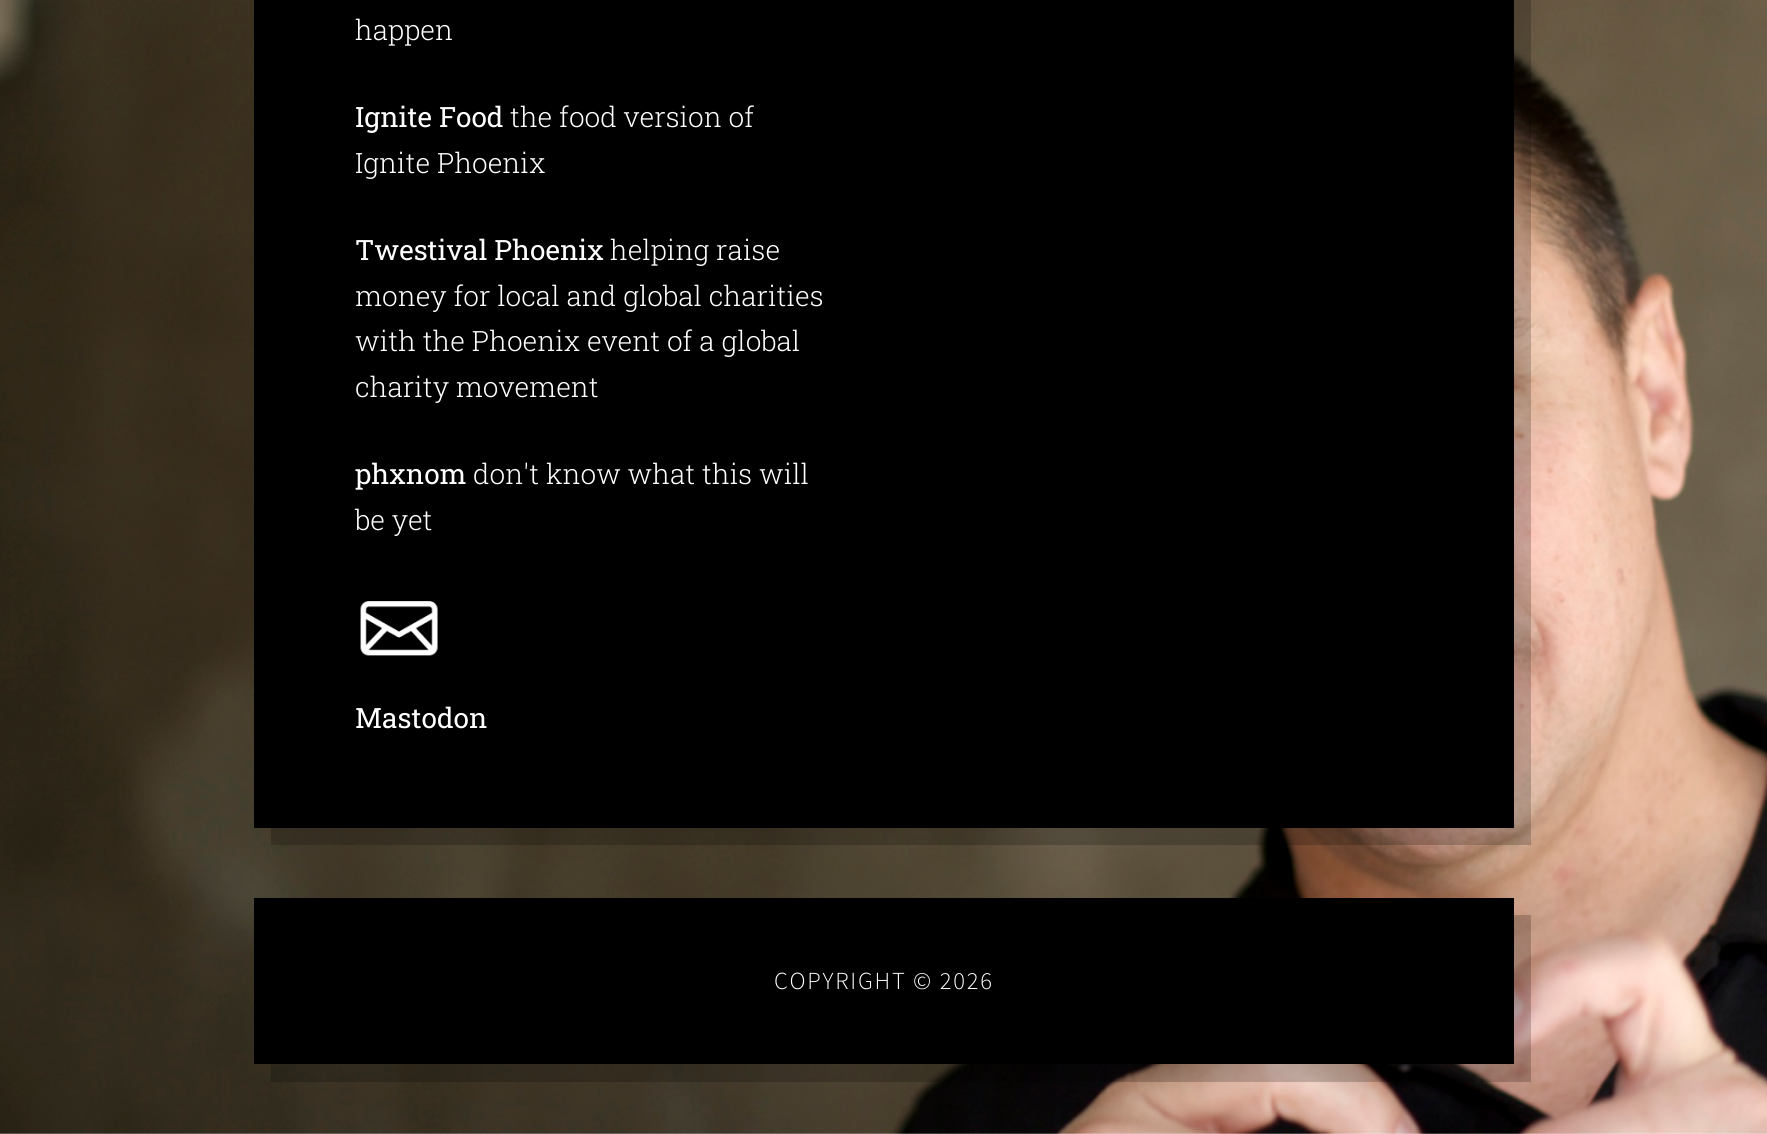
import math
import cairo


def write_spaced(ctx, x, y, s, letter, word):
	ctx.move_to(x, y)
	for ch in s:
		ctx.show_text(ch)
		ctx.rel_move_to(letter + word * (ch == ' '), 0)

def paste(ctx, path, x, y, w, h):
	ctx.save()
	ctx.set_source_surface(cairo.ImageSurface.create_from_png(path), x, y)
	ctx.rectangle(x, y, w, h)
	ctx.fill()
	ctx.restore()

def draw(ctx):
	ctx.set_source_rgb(1, 1, 1)
	ctx.paint()
	paste(ctx, 'media/1.png', 0, 0, 1767, 1134)
	ctx.set_source_rgba(0, 0, 0, 0.2)
	ctx.new_path()
	ctx.move_to(271, 828)
	ctx.line_to(271, 845)
	ctx.line_to(1531, 845)
	ctx.line_to(1531, -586)
	ctx.line_to(1514, -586)
	ctx.line_to(1514, 828)
	ctx.close_path()
	ctx.fill()
	ctx.set_source_rgb(0, 0, 0)
	ctx.rectangle(254, 0, 1260, 828)
	ctx.fill()
	ctx.select_font_face('Roboto Slab Light')
	ctx.set_font_size(28)
	ctx.set_source_rgb(1, 1, 1)
	ctx.move_to(355, 40)
	ctx.show_text('happen')
	ctx.select_font_face('Roboto Slab')
	ctx.move_to(355, 127)
	ctx.show_text('Ignite Food')
	ctx.select_font_face('Roboto Slab Light')
	ctx.move_to(510, 127)
	ctx.show_text('the food version of')
	ctx.move_to(355, 173)
	ctx.show_text('Ignite Phoenix')
	ctx.select_font_face('Roboto Slab')
	ctx.move_to(355, 260)
	ctx.show_text('Twestival Phoenix')
	ctx.select_font_face('Roboto Slab Light')
	for x, y, s in [
		(610, 260, 'helping raise'),
		(355, 306, 'money for local and global charities'),
		(355, 351, 'with the Phoenix event of a global'),
		(355, 397, 'charity movement'),
	]:
		ctx.move_to(x, y)
		ctx.show_text(s)
	ctx.select_font_face('Roboto Slab')
	ctx.move_to(355, 484)
	ctx.show_text('phxnom')
	ctx.select_font_face('Roboto Slab Light')
	ctx.move_to(473, 484)
	ctx.show_text('don\'t know what this will')
	ctx.move_to(355, 530)
	ctx.show_text('be yet')
	paste(ctx, 'media/2.png', 360, 601, 78, 55)
	ctx.select_font_face('Roboto Slab')
	ctx.move_to(355, 728)
	ctx.show_text('Mastodon')
	ctx.set_source_rgba(0, 0, 0, 0.2)
	ctx.new_path()
	ctx.move_to(271, 1064)
	ctx.line_to(271, 1082)
	ctx.line_to(1531, 1082)
	ctx.line_to(1531, 915)
	ctx.line_to(1514, 915)
	ctx.line_to(1514, 1064)
	ctx.close_path()
	ctx.fill()
	ctx.set_source_rgb(0, 0, 0)
	ctx.rectangle(254, 898, 1260, 166)
	ctx.fill()
	ctx.select_font_face('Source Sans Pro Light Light')
	ctx.set_font_size(24.5)
	ctx.set_source_rgb(1, 1, 1)
	write_spaced(ctx, 774, 989, 'COPYRIGHT © 2026', 1.75, 0)


surface = cairo.ImageSurface(cairo.FORMAT_RGB24, 1767, 1134)
ctx = cairo.Context(surface)
options = cairo.FontOptions()
options.set_hint_metrics(cairo.HINT_METRICS_OFF)
options.set_hint_style(cairo.HINT_STYLE_NONE)
ctx.set_font_options(options)
ctx.set_miter_limit(4)
draw(ctx)
surface.write_to_png('image.png')
